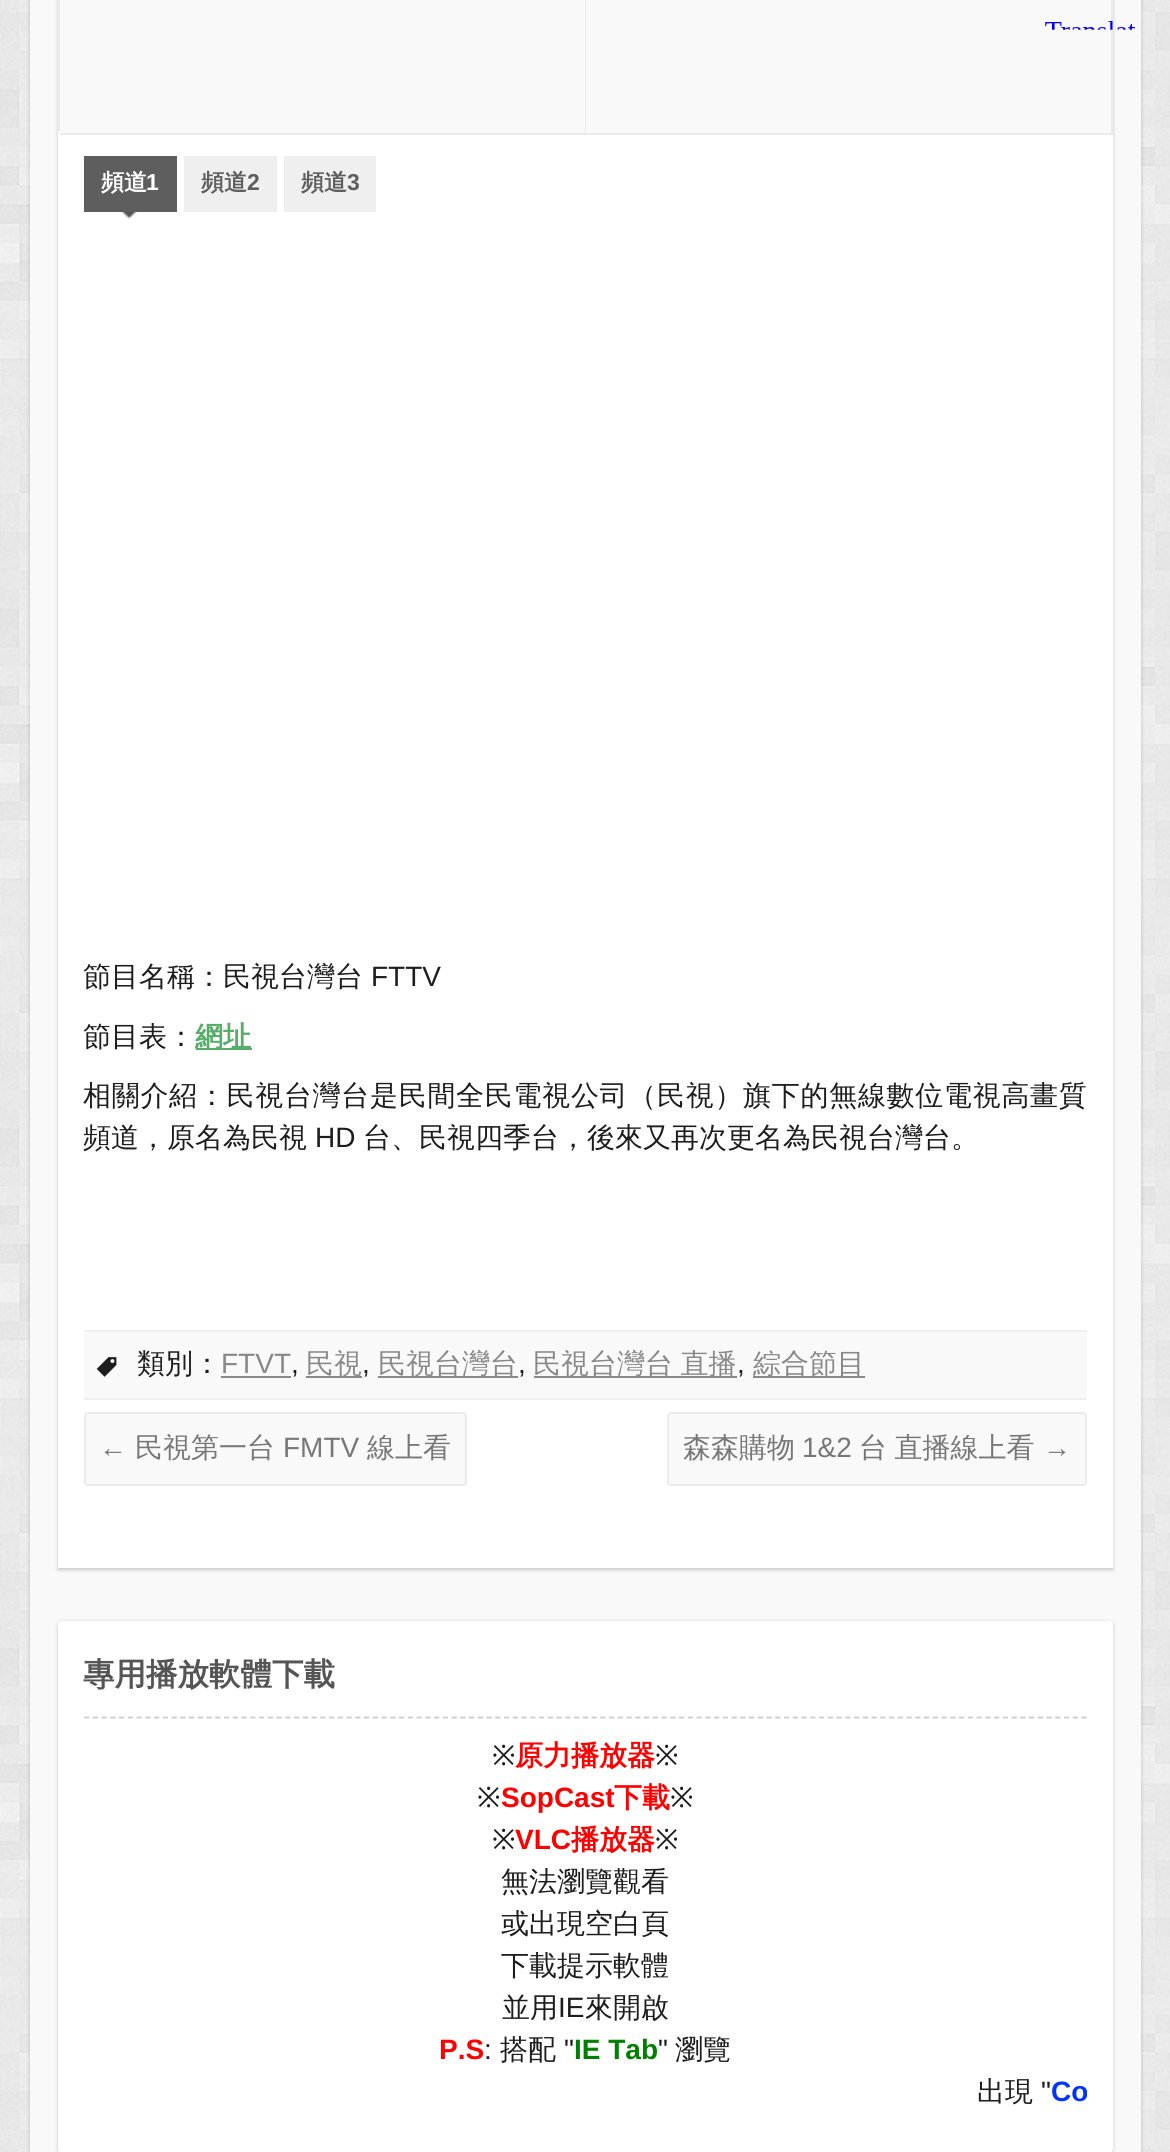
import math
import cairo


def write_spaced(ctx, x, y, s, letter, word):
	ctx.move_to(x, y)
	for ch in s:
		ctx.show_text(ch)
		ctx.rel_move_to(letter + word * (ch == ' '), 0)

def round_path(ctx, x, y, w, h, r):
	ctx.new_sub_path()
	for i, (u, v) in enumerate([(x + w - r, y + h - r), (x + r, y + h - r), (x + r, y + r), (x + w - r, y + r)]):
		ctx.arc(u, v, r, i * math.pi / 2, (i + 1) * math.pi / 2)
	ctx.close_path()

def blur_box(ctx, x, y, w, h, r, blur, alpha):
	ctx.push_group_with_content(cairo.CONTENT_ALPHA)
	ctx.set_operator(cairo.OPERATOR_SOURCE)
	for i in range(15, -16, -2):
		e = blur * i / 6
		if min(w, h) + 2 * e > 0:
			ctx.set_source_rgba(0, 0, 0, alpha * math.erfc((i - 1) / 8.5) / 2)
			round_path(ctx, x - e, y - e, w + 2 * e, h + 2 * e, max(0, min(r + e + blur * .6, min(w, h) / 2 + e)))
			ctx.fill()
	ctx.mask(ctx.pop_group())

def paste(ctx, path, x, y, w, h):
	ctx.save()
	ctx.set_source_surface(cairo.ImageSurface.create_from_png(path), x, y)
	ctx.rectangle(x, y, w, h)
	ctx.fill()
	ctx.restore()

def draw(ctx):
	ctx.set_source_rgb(1, 1, 1)
	ctx.paint()
	paste(ctx, 'media/1.png', 0, 0, 1170, 2152)
	ctx.set_source_rgb(0, 0, 0)
	blur_box(ctx, 30, -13, 1111, 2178, 7, 2, 0.2)
	ctx.set_source_rgb(0.973, 0.973, 0.973)
	ctx.rectangle(30, 0, 1111, 2152)
	ctx.fill()
	ctx.set_source_rgb(0, 0, 0)
	blur_box(ctx, 58, -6, 1055, 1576, 0, 2, 0.2)
	ctx.set_source_rgb(1, 1, 1)
	ctx.rectangle(58, 131, 1055, 1437)
	ctx.fill()
	ctx.set_source_rgb(0.976, 0.976, 0.976)
	round_path(ctx, 58, -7, 1055, 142, 7)
	ctx.fill()
	ctx.set_source_rgb(0.918, 0.918, 0.918)
	ctx.rectangle(1111, 0, 2, 135)
	ctx.fill()
	paste(ctx, 'media/2.png', 1045, 21, 90, 9)
	ctx.rectangle(58, 0, 2, 131)
	ctx.rectangle(585, 0, 1, 135)
	ctx.rectangle(60, 133, 526, 2)
	ctx.rectangle(586, 133, 527, 2)
	ctx.fill()
	paste(ctx, 'media/3.png', 122, 212, 15, 7)
	ctx.set_source_rgb(0.369, 0.369, 0.369)
	ctx.rectangle(84, 156, 93, 56)
	ctx.fill()
	ctx.select_font_face('WenQuanYi Zen Hei', cairo.FONT_SLANT_NORMAL, cairo.FONT_WEIGHT_BOLD)
	ctx.set_font_size(23)
	ctx.set_source_rgb(1, 1, 1)
	ctx.move_to(101, 190)
	ctx.show_text('頻道')
	ctx.select_font_face('Liberation Sans', cairo.FONT_SLANT_NORMAL, cairo.FONT_WEIGHT_BOLD)
	ctx.move_to(146, 190)
	ctx.show_text('1')
	ctx.set_source_rgb(0.937, 0.937, 0.937)
	ctx.rectangle(184, 156, 93, 56)
	ctx.fill()
	ctx.select_font_face('WenQuanYi Zen Hei', cairo.FONT_SLANT_NORMAL, cairo.FONT_WEIGHT_BOLD)
	ctx.set_source_rgb(0.369, 0.369, 0.369)
	ctx.move_to(201, 190)
	ctx.show_text('頻道')
	ctx.select_font_face('Liberation Sans', cairo.FONT_SLANT_NORMAL, cairo.FONT_WEIGHT_BOLD)
	ctx.move_to(247, 190)
	ctx.show_text('2')
	ctx.set_source_rgb(0.937, 0.937, 0.937)
	ctx.rectangle(284, 156, 92, 56)
	ctx.fill()
	ctx.select_font_face('WenQuanYi Zen Hei', cairo.FONT_SLANT_NORMAL, cairo.FONT_WEIGHT_BOLD)
	ctx.set_source_rgb(0.369, 0.369, 0.369)
	ctx.move_to(301, 190)
	ctx.show_text('頻道')
	ctx.select_font_face('Liberation Sans', cairo.FONT_SLANT_NORMAL, cairo.FONT_WEIGHT_BOLD)
	ctx.move_to(347, 190)
	ctx.show_text('3')
	ctx.select_font_face('WenQuanYi Zen Hei Medium')
	ctx.set_font_size(28)
	ctx.set_source_rgb(0.114, 0.114, 0.114)
	ctx.move_to(83, 986)
	ctx.show_text('節目名稱：民視台灣台')
	ctx.select_font_face('Liberation Sans')
	ctx.move_to(371, 986)
	ctx.show_text('FTTV')
	ctx.select_font_face('WenQuanYi Zen Hei Medium')
	ctx.move_to(83, 1046)
	ctx.show_text('節目表：')
	ctx.set_source_rgb(0.341, 0.678, 0.408)
	ctx.rectangle(196, 1048, 56, 2)
	ctx.fill()
	ctx.select_font_face('WenQuanYi Zen Hei', cairo.FONT_SLANT_NORMAL, cairo.FONT_WEIGHT_BOLD)
	ctx.move_to(195, 1046)
	ctx.show_text('網址')
	ctx.select_font_face('WenQuanYi Zen Hei Medium')
	ctx.set_source_rgb(0.114, 0.114, 0.114)
	write_spaced(ctx, 83, 1105, '相關介紹：民視台灣台是民間全民電視公司（民視）旗下的無線數位電視高畫質', 0.7, 0)
	ctx.move_to(83, 1147)
	ctx.show_text('頻道，原名為民視')
	ctx.select_font_face('Liberation Sans')
	ctx.move_to(315, 1147)
	ctx.show_text('HD')
	ctx.select_font_face('WenQuanYi Zen Hei Medium')
	ctx.move_to(363, 1147)
	ctx.show_text('台、民視四季台，後來又再次更名為民視台灣台。')
	ctx.set_source_rgb(0.976, 0.976, 0.976)
	ctx.rectangle(84, 1332, 1003, 66)
	ctx.fill()
	ctx.set_source_rgb(0.941, 0.941, 0.941)
	ctx.rectangle(84, 1330, 1003, 2)
	ctx.rectangle(84, 1398, 1003, 2)
	ctx.fill()
	paste(ctx, 'media/4.png', 96, 1357, 21, 20)
	ctx.set_source_rgb(0.114, 0.114, 0.114)
	ctx.move_to(137, 1373)
	ctx.show_text('類別：')
	ctx.select_font_face('Liberation Sans')
	ctx.set_source_rgb(0.533, 0.533, 0.533)
	ctx.move_to(221, 1373)
	ctx.show_text('FTVT')
	ctx.rectangle(221, 1376, 70, 2)
	ctx.fill()
	ctx.set_source_rgb(0.114, 0.114, 0.114)
	ctx.move_to(291, 1373)
	ctx.show_text(',')
	ctx.set_source_rgb(0.533, 0.533, 0.533)
	ctx.rectangle(306, 1376, 56, 2)
	ctx.fill()
	ctx.select_font_face('WenQuanYi Zen Hei Medium')
	ctx.move_to(306, 1373)
	ctx.show_text('民視')
	ctx.select_font_face('Liberation Sans')
	ctx.set_source_rgb(0.114, 0.114, 0.114)
	ctx.move_to(362, 1373)
	ctx.show_text(',')
	ctx.set_source_rgb(0.533, 0.533, 0.533)
	ctx.rectangle(378, 1376, 140, 2)
	ctx.fill()
	ctx.select_font_face('WenQuanYi Zen Hei Medium')
	ctx.move_to(378, 1373)
	ctx.show_text('民視台灣台')
	ctx.select_font_face('Liberation Sans')
	ctx.set_source_rgb(0.114, 0.114, 0.114)
	ctx.move_to(518, 1373)
	ctx.show_text(',')
	ctx.set_source_rgb(0.533, 0.533, 0.533)
	ctx.rectangle(534, 1376, 203, 2)
	ctx.fill()
	ctx.select_font_face('WenQuanYi Zen Hei Medium')
	write_spaced(ctx, 533, 1373, '民視台灣台 直播', 0, -1)
	ctx.select_font_face('Liberation Sans')
	ctx.set_source_rgb(0.114, 0.114, 0.114)
	ctx.move_to(737, 1373)
	ctx.show_text(',')
	ctx.set_source_rgb(0.533, 0.533, 0.533)
	ctx.rectangle(753, 1376, 112, 2)
	ctx.fill()
	ctx.select_font_face('WenQuanYi Zen Hei Medium')
	ctx.move_to(753, 1373)
	ctx.show_text('綜合節目')
	ctx.set_source_rgb(0.976, 0.976, 0.976)
	round_path(ctx, 85, 1413, 381, 72, 3)
	ctx.fill_preserve()
	ctx.set_source_rgb(0.918, 0.918, 0.918)
	ctx.stroke()
	ctx.select_font_face('Liberation Sans')
	ctx.set_source_rgb(0.467, 0.467, 0.467)
	ctx.move_to(99, 1457)
	ctx.show_text('←')
	ctx.select_font_face('WenQuanYi Zen Hei Medium')
	ctx.move_to(135, 1457)
	ctx.show_text('民視第一台')
	ctx.select_font_face('Liberation Sans')
	ctx.move_to(283, 1457)
	ctx.show_text('FMTV')
	ctx.select_font_face('WenQuanYi Zen Hei Medium')
	ctx.move_to(367, 1457)
	ctx.show_text('線上看')
	ctx.set_source_rgb(0.976, 0.976, 0.976)
	round_path(ctx, 668, 1413, 418, 72, 3)
	ctx.fill_preserve()
	ctx.set_source_rgb(0.918, 0.918, 0.918)
	ctx.stroke()
	ctx.set_source_rgb(0.467, 0.467, 0.467)
	ctx.move_to(683, 1457)
	ctx.show_text('森森購物')
	ctx.select_font_face('Liberation Sans')
	ctx.move_to(802, 1457)
	ctx.show_text('1&2')
	ctx.select_font_face('WenQuanYi Zen Hei Medium')
	write_spaced(ctx, 859, 1457, '台 直播線上看', 0, -1)
	ctx.select_font_face('Liberation Sans')
	ctx.move_to(1043, 1457)
	ctx.show_text('→')
	ctx.set_source_rgb(0, 0, 0)
	blur_box(ctx, 58, 1622, 1055, 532, 4, 2, 0.2)
	ctx.set_source_rgb(1, 1, 1)
	round_path(ctx, 58, 1621, 1055, 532, 4)
	ctx.fill()
	ctx.new_path()
	ctx.move_to(84, 1717.5)
	ctx.line_to(1087, 1717.5)
	ctx.set_source_rgb(0.8, 0.8, 0.8)
	ctx.set_line_width(1.8)
	ctx.set_dash([5.25, 3.5])
	ctx.stroke()
	ctx.select_font_face('WenQuanYi Zen Hei', cairo.FONT_SLANT_NORMAL, cairo.FONT_WEIGHT_BOLD)
	ctx.set_font_size(31.5)
	ctx.set_source_rgb(0.333, 0.333, 0.333)
	ctx.move_to(83, 1685)
	ctx.show_text('專用播放軟體下載')
	ctx.select_font_face('Noto Sans')
	ctx.set_font_size(28)
	ctx.set_source_rgb(0.114, 0.114, 0.114)
	ctx.move_to(492, 1765)
	ctx.show_text('※')
	ctx.select_font_face('WenQuanYi Zen Hei', cairo.FONT_SLANT_NORMAL, cairo.FONT_WEIGHT_BOLD)
	ctx.set_source_rgb(1, 0, 0)
	ctx.move_to(515, 1765)
	ctx.show_text('原力播放器')
	ctx.select_font_face('Noto Sans')
	ctx.set_source_rgb(0.114, 0.114, 0.114)
	ctx.move_to(655, 1765)
	ctx.show_text('※')
	ctx.move_to(477, 1807)
	ctx.show_text('※')
	ctx.select_font_face('Liberation Sans', cairo.FONT_SLANT_NORMAL, cairo.FONT_WEIGHT_BOLD)
	ctx.set_source_rgb(1, 0, 0)
	ctx.move_to(501, 1807)
	ctx.show_text('SopCast')
	ctx.select_font_face('WenQuanYi Zen Hei', cairo.FONT_SLANT_NORMAL, cairo.FONT_WEIGHT_BOLD)
	ctx.move_to(614, 1807)
	ctx.show_text('下載')
	ctx.select_font_face('Noto Sans')
	ctx.set_source_rgb(0.114, 0.114, 0.114)
	ctx.move_to(670, 1807)
	ctx.show_text('※')
	ctx.move_to(492, 1849)
	ctx.show_text('※')
	ctx.select_font_face('Liberation Sans', cairo.FONT_SLANT_NORMAL, cairo.FONT_WEIGHT_BOLD)
	ctx.set_source_rgb(1, 0, 0)
	ctx.move_to(515, 1849)
	ctx.show_text('VLC')
	ctx.select_font_face('WenQuanYi Zen Hei', cairo.FONT_SLANT_NORMAL, cairo.FONT_WEIGHT_BOLD)
	ctx.move_to(571, 1849)
	ctx.show_text('播放器')
	ctx.select_font_face('Noto Sans')
	ctx.set_source_rgb(0.114, 0.114, 0.114)
	ctx.move_to(655, 1849)
	ctx.show_text('※')
	ctx.select_font_face('WenQuanYi Zen Hei Medium')
	for x, y, s in [
		(501, 1891, '無法瀏覽觀看'),
		(501, 1933, '或出現空白頁'),
		(501, 1975, '下載提示軟體'),
		(502, 2017, '並用'),
	]:
		ctx.move_to(x, y)
		ctx.show_text(s)
	ctx.select_font_face('Liberation Sans')
	ctx.move_to(558, 2017)
	ctx.show_text('IE')
	ctx.select_font_face('WenQuanYi Zen Hei Medium')
	ctx.move_to(585, 2017)
	ctx.show_text('來開啟')
	ctx.select_font_face('Liberation Sans', cairo.FONT_SLANT_NORMAL, cairo.FONT_WEIGHT_BOLD)
	ctx.set_source_rgb(1, 0, 0)
	ctx.move_to(439, 2059)
	ctx.show_text('P.S')
	ctx.select_font_face('WenQuanYi Zen Hei Medium')
	ctx.set_source_rgb(0.114, 0.114, 0.114)
	ctx.move_to(500, 2059)
	ctx.show_text('搭配')
	ctx.select_font_face('Liberation Sans')
	ctx.move_to(564, 2059)
	ctx.show_text('"')
	ctx.select_font_face('Liberation Sans', cairo.FONT_SLANT_NORMAL, cairo.FONT_WEIGHT_BOLD)
	ctx.set_source_rgb(0, 0.502, 0)
	ctx.move_to(574, 2059)
	ctx.show_text('IE Tab')
	ctx.select_font_face('Liberation Sans')
	ctx.set_source_rgb(0.114, 0.114, 0.114)
	ctx.move_to(658, 2059)
	ctx.show_text('"')
	ctx.select_font_face('WenQuanYi Zen Hei Medium')
	ctx.move_to(675, 2059)
	ctx.show_text('瀏覽')
	ctx.select_font_face('Liberation Sans')
	ctx.move_to(484, 2059)
	ctx.show_text(':')
	ctx.select_font_face('WenQuanYi Zen Hei Medium')
	ctx.move_to(977, 2101)
	ctx.show_text('出現')
	ctx.select_font_face('Liberation Sans')
	ctx.move_to(1041, 2101)
	ctx.show_text('"')
	ctx.save()
	ctx.rectangle(84, 2072, 1003, 42)
	ctx.clip()
	ctx.select_font_face('Liberation Sans', cairo.FONT_SLANT_NORMAL, cairo.FONT_WEIGHT_BOLD)
	ctx.set_source_rgb(0, 0.2, 1)
	ctx.move_to(1051, 2101)
	ctx.show_text('Co')
	ctx.restore()


surface = cairo.ImageSurface(cairo.FORMAT_RGB24, 1170, 2152)
ctx = cairo.Context(surface)
options = cairo.FontOptions()
options.set_hint_metrics(cairo.HINT_METRICS_OFF)
options.set_hint_style(cairo.HINT_STYLE_NONE)
ctx.set_font_options(options)
ctx.set_miter_limit(4)
draw(ctx)
surface.write_to_png('image.png')
